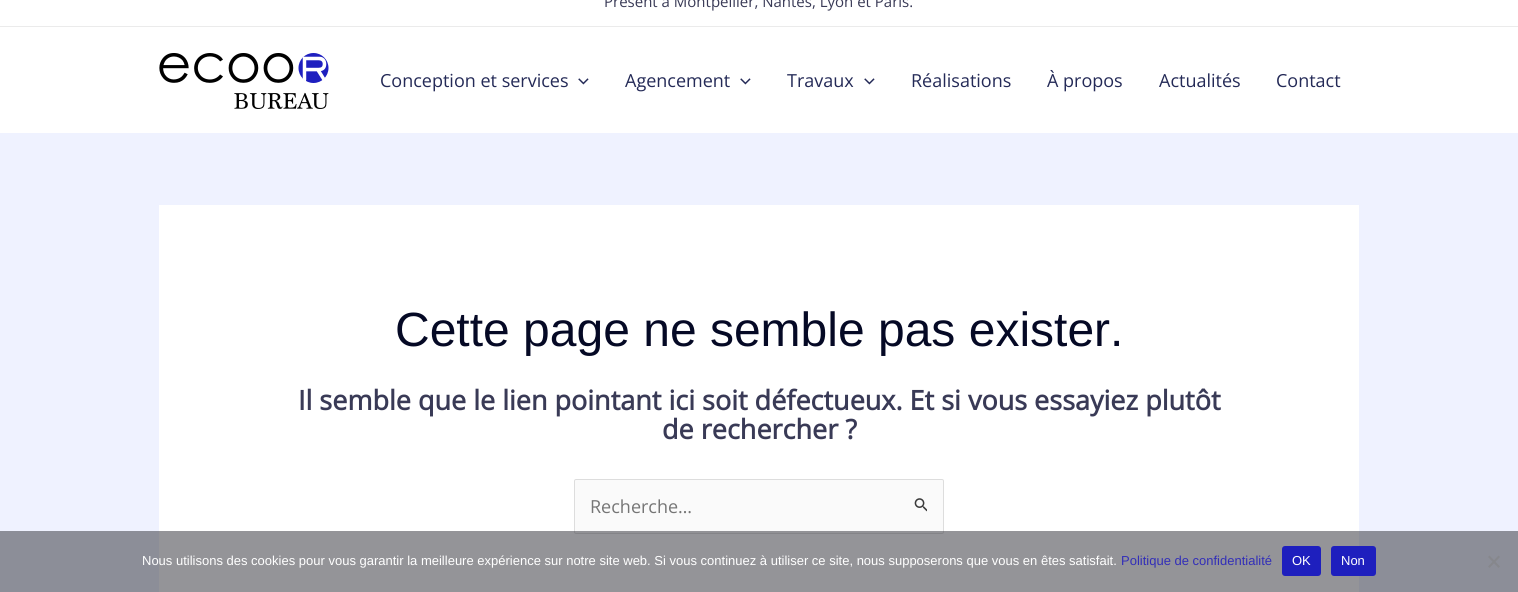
import math
import cairo


def round_path(ctx, x, y, w, h, r):
	ctx.new_sub_path()
	for i, (u, v) in enumerate([(x + w - r, y + h - r), (x + r, y + h - r), (x + r, y + r), (x + w - r, y + r)]):
		ctx.arc(u, v, r, i * math.pi / 2, (i + 1) * math.pi / 2)
	ctx.close_path()

def paste(ctx, path, x, y, w, h):
	ctx.save()
	ctx.set_source_surface(cairo.ImageSurface.create_from_png(path), x, y)
	ctx.rectangle(x, y, w, h)
	ctx.fill()
	ctx.restore()

def draw(ctx):
	ctx.set_source_rgb(0.937, 0.949, 1)
	ctx.paint()
	ctx.set_source_rgb(1, 1, 1)
	ctx.rectangle(0, 0, 1518, 26)
	ctx.fill()
	ctx.set_source_rgb(0.918, 0.918, 0.918)
	ctx.rectangle(0, 26, 1518, 1)
	ctx.fill()
	ctx.select_font_face('Open Sans')
	ctx.set_font_size(15)
	ctx.set_source_rgb(0.224, 0.227, 0.337)
	ctx.move_to(604, 7)
	ctx.show_text('Présent à Montpellier, Nantes, Lyon et Paris.')
	ctx.set_source_rgb(1, 1, 1)
	ctx.rectangle(0, 27, 1518, 106)
	ctx.fill()
	paste(ctx, 'media/1.png', 159, 53, 170, 56)
	ctx.set_font_size(18)
	ctx.set_source_rgb(0.141, 0.165, 0.341)
	ctx.move_to(380, 87)
	ctx.show_text('Conception et services')
	paste(ctx, 'media/2.png', 578, 78, 11, 7)
	ctx.move_to(625, 87)
	ctx.show_text('Agencement')
	paste(ctx, 'media/2.png', 740, 78, 11, 7)
	ctx.move_to(787, 87)
	ctx.show_text('Travaux')
	paste(ctx, 'media/2.png', 864, 78, 11, 7)
	for x, y, s in [
		(911, 87, 'Réalisations'),
		(1047, 87, 'À propos'),
		(1159, 87, 'Actualités'),
		(1276, 87, 'Contact'),
	]:
		ctx.move_to(x, y)
		ctx.show_text(s)
	ctx.set_source_rgb(1, 1, 1)
	ctx.rectangle(159, 205, 1200, 387)
	ctx.fill()
	ctx.select_font_face('Liberation Sans')
	ctx.set_font_size(48)
	ctx.set_source_rgb(0.02, 0.039, 0.145)
	ctx.move_to(395, 346)
	ctx.show_text('Cette page ne semble pas exister.')
	ctx.select_font_face('Open Sans', cairo.FONT_SLANT_NORMAL, cairo.FONT_WEIGHT_BOLD)
	ctx.set_font_size(27)
	ctx.set_source_rgb(0.224, 0.227, 0.337)
	ctx.move_to(298, 410)
	ctx.show_text('Il semble que le lien pointant ici soit défectueux. Et si vous essayiez plutôt')
	ctx.move_to(662, 439)
	ctx.show_text('de rechercher ?')
	ctx.set_source_rgb(0.98, 0.98, 0.98)
	round_path(ctx, 574.5, 479.5, 369, 54, 1.5)
	ctx.fill_preserve()
	ctx.set_source_rgb(0.867, 0.867, 0.867)
	ctx.set_line_width(1)
	ctx.stroke()
	ctx.select_font_face('Open Sans')
	ctx.set_font_size(18)
	ctx.set_source_rgb(0.459, 0.459, 0.459)
	ctx.move_to(590, 513)
	ctx.show_text('Recherche…')
	paste(ctx, 'media/3.png', 914, 498, 13, 14)
	ctx.set_source_rgba(0.196, 0.196, 0.227, 0.52)
	ctx.rectangle(0, 531, 1518, 61)
	ctx.fill()
	ctx.select_font_face('Liberation Sans')
	ctx.set_font_size(13)
	ctx.set_source_rgb(1, 1, 1)
	ctx.move_to(142, 565)
	ctx.show_text('Nous utilisons des cookies pour vous garantir la meilleure expérience sur notre site web. Si vous continuez à utiliser ce site, nous supposerons que vous en êtes satisfait.')
	ctx.set_source_rgb(0.196, 0.18, 0.722)
	ctx.move_to(1121, 565)
	ctx.show_text('Politique de confidentialité')
	ctx.set_source_rgb(0.118, 0.122, 0.745)
	round_path(ctx, 1282, 546, 39, 30, 3)
	ctx.fill()
	ctx.set_source_rgb(1, 1, 1)
	ctx.move_to(1292, 565)
	ctx.show_text('OK')
	ctx.set_source_rgb(0.118, 0.122, 0.745)
	round_path(ctx, 1331, 546, 45, 30, 3)
	ctx.fill()
	ctx.set_source_rgb(1, 1, 1)
	ctx.move_to(1341, 565)
	ctx.show_text('Non')
	ctx.set_source_rgb(0.525, 0.529, 0.549)
	ctx.new_path()
	ctx.move_to(1498.5, 555.5)
	ctx.line_to(1500, 557)
	ctx.line_to(1489.5, 568)
	ctx.line_to(1488, 566.5)
	ctx.close_path()
	ctx.fill()
	ctx.new_path()
	ctx.move_to(1488, 557)
	ctx.line_to(1489.5, 555.5)
	ctx.line_to(1500, 566.5)
	ctx.line_to(1498.5, 568)
	ctx.close_path()
	ctx.fill()


surface = cairo.ImageSurface(cairo.FORMAT_RGB24, 1518, 592)
ctx = cairo.Context(surface)
options = cairo.FontOptions()
options.set_hint_metrics(cairo.HINT_METRICS_OFF)
options.set_hint_style(cairo.HINT_STYLE_NONE)
ctx.set_font_options(options)
ctx.set_miter_limit(4)
draw(ctx)
surface.write_to_png('image.png')
